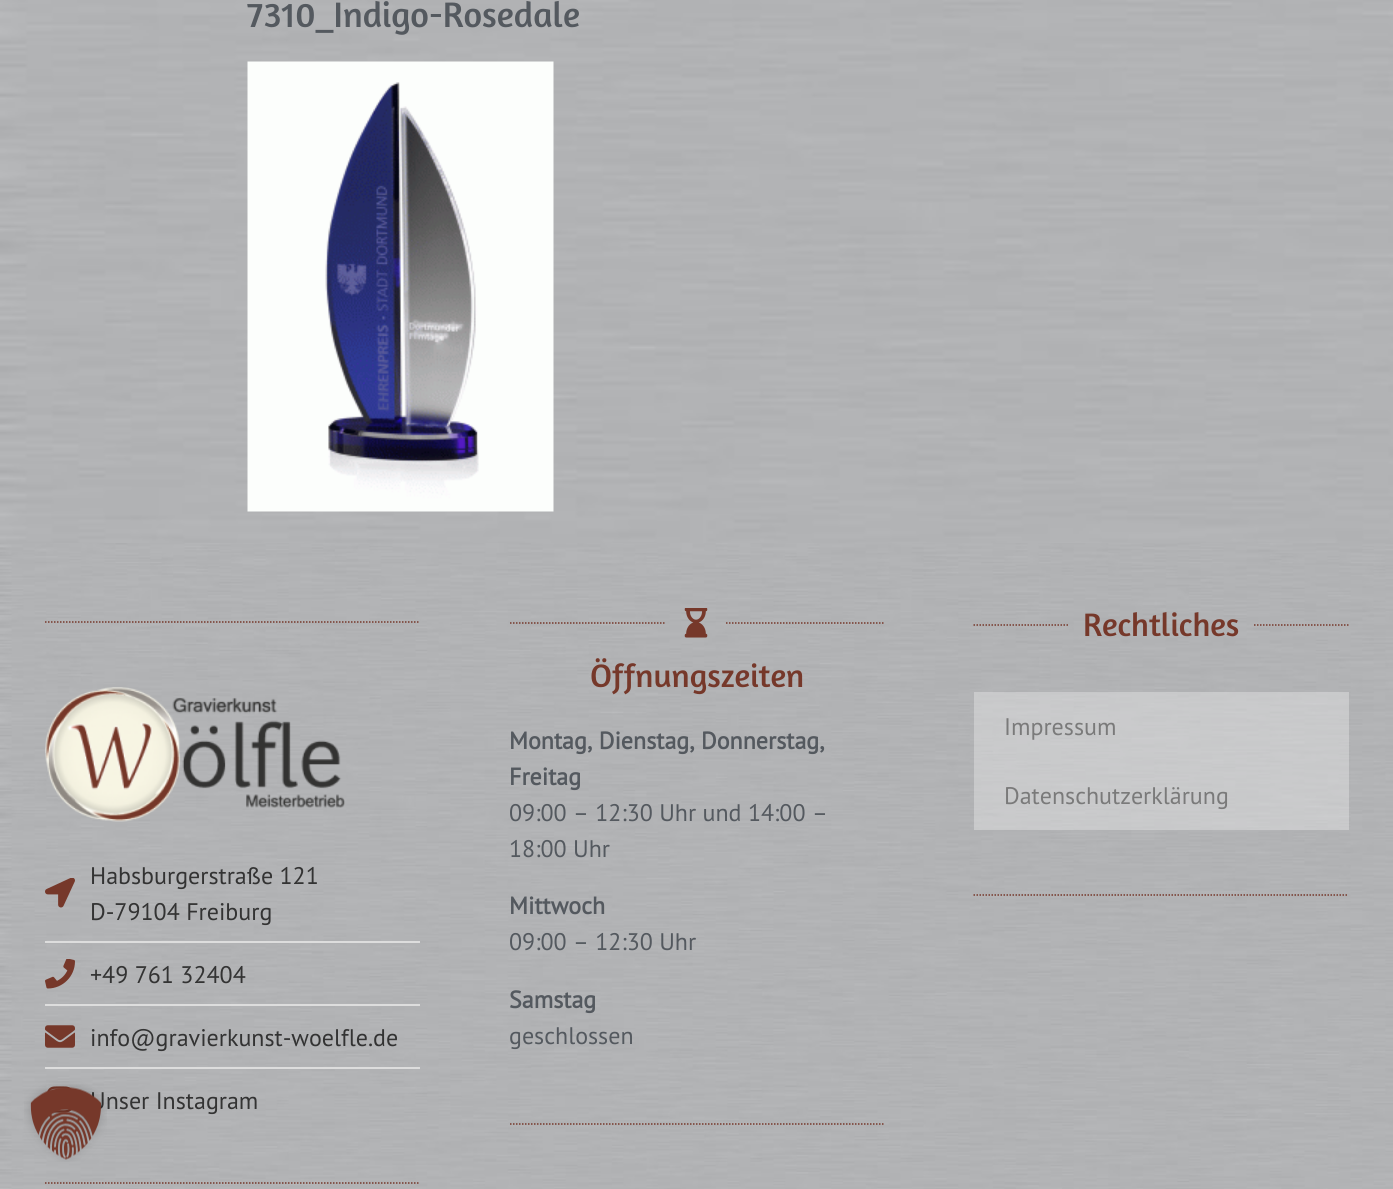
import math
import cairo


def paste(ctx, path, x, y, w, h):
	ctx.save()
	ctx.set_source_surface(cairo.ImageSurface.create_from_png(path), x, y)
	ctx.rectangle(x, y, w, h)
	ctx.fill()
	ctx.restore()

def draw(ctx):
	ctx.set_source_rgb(1, 1, 1)
	ctx.paint()
	paste(ctx, 'media/1.png', 0, 0, 1393, 543)
	ctx.select_font_face('Amaranth')
	ctx.set_font_size(36)
	ctx.set_source_rgb(0.329, 0.349, 0.373)
	ctx.move_to(247, 27)
	ctx.show_text('7310_Indigo-Rosedale')
	paste(ctx, 'media/2.png', 247, 61, 307, 451)
	paste(ctx, 'media/4.png', 0, 543, 1393, 646)
	paste(ctx, 'media/9.png', 47, 1086, 25, 27)
	ctx.select_font_face('PT Sans')
	ctx.set_font_size(24)
	ctx.set_source_rgb(0.2, 0.2, 0.2)
	ctx.move_to(90, 1109)
	ctx.show_text('Unser Instagram')
	paste(ctx, 'media/3.png', 24, 1081, 83, 81)
	ctx.new_path()
	ctx.move_to(45, 622)
	ctx.line_to(420, 622)
	ctx.set_source_rgb(0.463, 0.22, 0.165)
	ctx.set_line_width(1.5)
	ctx.set_dash([1.5, 1.5])
	ctx.stroke()
	paste(ctx, 'media/5.png', 45, 687, 300, 135)
	paste(ctx, 'media/6.png', 45, 878, 30, 30)
	ctx.set_source_rgb(0.2, 0.2, 0.2)
	ctx.move_to(90, 884)
	ctx.show_text('Habsburgerstraße 121')
	ctx.move_to(90, 920)
	ctx.show_text('D-79104 Freiburg')
	ctx.set_source_rgb(0.867, 0.867, 0.867)
	ctx.rectangle(45, 941, 375, 2)
	ctx.fill()
	paste(ctx, 'media/7.png', 45, 959, 30, 30)
	ctx.set_source_rgb(0.2, 0.2, 0.2)
	ctx.move_to(90, 983)
	ctx.show_text('+49 761 32404')
	ctx.set_source_rgb(0.867, 0.867, 0.867)
	ctx.rectangle(45, 1004, 375, 2)
	ctx.fill()
	paste(ctx, 'media/8.png', 45, 1025, 30, 23)
	ctx.set_source_rgb(0.2, 0.2, 0.2)
	ctx.move_to(90, 1046)
	ctx.show_text('info@gravierkunst-woelfle.de')
	ctx.set_source_rgb(0.867, 0.867, 0.867)
	ctx.rectangle(45, 1067, 375, 2)
	ctx.fill()
	ctx.new_path()
	ctx.move_to(45, 1183)
	ctx.line_to(420, 1183)
	ctx.set_source_rgb(0.463, 0.22, 0.165)
	ctx.stroke()
	ctx.new_path()
	ctx.move_to(510, 623)
	ctx.line_to(666, 623)
	ctx.stroke()
	paste(ctx, 'media/10.png', 684, 608, 24, 30)
	ctx.new_path()
	ctx.move_to(726, 623)
	ctx.line_to(883.5, 623)
	ctx.stroke()
	ctx.select_font_face('Amaranth')
	ctx.set_font_size(33)
	ctx.move_to(590, 687)
	ctx.show_text('Öffnungszeiten')
	ctx.select_font_face('PT Sans', cairo.FONT_SLANT_NORMAL, cairo.FONT_WEIGHT_BOLD)
	ctx.set_font_size(24)
	ctx.set_source_rgb(0.329, 0.349, 0.373)
	ctx.move_to(509, 749)
	ctx.show_text('Montag, Dienstag, Donnerstag,')
	ctx.move_to(509, 785)
	ctx.show_text('Freitag')
	ctx.select_font_face('PT Sans')
	ctx.move_to(509, 821)
	ctx.show_text('09:00 – 12:30 Uhr und 14:00 –')
	ctx.move_to(509, 857)
	ctx.show_text('18:00 Uhr')
	ctx.select_font_face('PT Sans', cairo.FONT_SLANT_NORMAL, cairo.FONT_WEIGHT_BOLD)
	ctx.move_to(509, 914)
	ctx.show_text('Mittwoch')
	ctx.select_font_face('PT Sans')
	ctx.move_to(509, 950)
	ctx.show_text('09:00 – 12:30 Uhr')
	ctx.select_font_face('PT Sans', cairo.FONT_SLANT_NORMAL, cairo.FONT_WEIGHT_BOLD)
	ctx.move_to(509, 1008)
	ctx.show_text('Samstag')
	ctx.select_font_face('PT Sans')
	ctx.move_to(509, 1044)
	ctx.show_text('geschlossen')
	ctx.new_path()
	ctx.move_to(510, 1124)
	ctx.line_to(883.5, 1124)
	ctx.set_source_rgb(0.463, 0.22, 0.165)
	ctx.stroke()
	ctx.new_path()
	ctx.move_to(973.5, 625)
	ctx.line_to(1068, 625)
	ctx.stroke()
	ctx.select_font_face('Amaranth')
	ctx.set_font_size(33)
	ctx.move_to(1083, 636)
	ctx.show_text('Rechtliches')
	ctx.new_path()
	ctx.move_to(1254, 625)
	ctx.line_to(1348.5, 625)
	ctx.stroke()
	ctx.set_source_rgba(1, 1, 1, 0.3)
	ctx.rectangle(974, 692, 375, 138)
	ctx.fill()
	ctx.select_font_face('PT Sans')
	ctx.set_font_size(24)
	ctx.set_source_rgb(0.478, 0.478, 0.478)
	ctx.move_to(1004, 735)
	ctx.show_text('Impressum')
	ctx.move_to(1004, 804)
	ctx.show_text('Datenschutzerklärung')
	ctx.new_path()
	ctx.move_to(973.5, 895)
	ctx.line_to(1348.5, 895)
	ctx.set_source_rgb(0.463, 0.22, 0.165)
	ctx.stroke()


surface = cairo.ImageSurface(cairo.FORMAT_RGB24, 1393, 1189)
ctx = cairo.Context(surface)
options = cairo.FontOptions()
options.set_hint_metrics(cairo.HINT_METRICS_OFF)
options.set_hint_style(cairo.HINT_STYLE_NONE)
ctx.set_font_options(options)
ctx.set_miter_limit(4)
draw(ctx)
surface.write_to_png('image.png')
